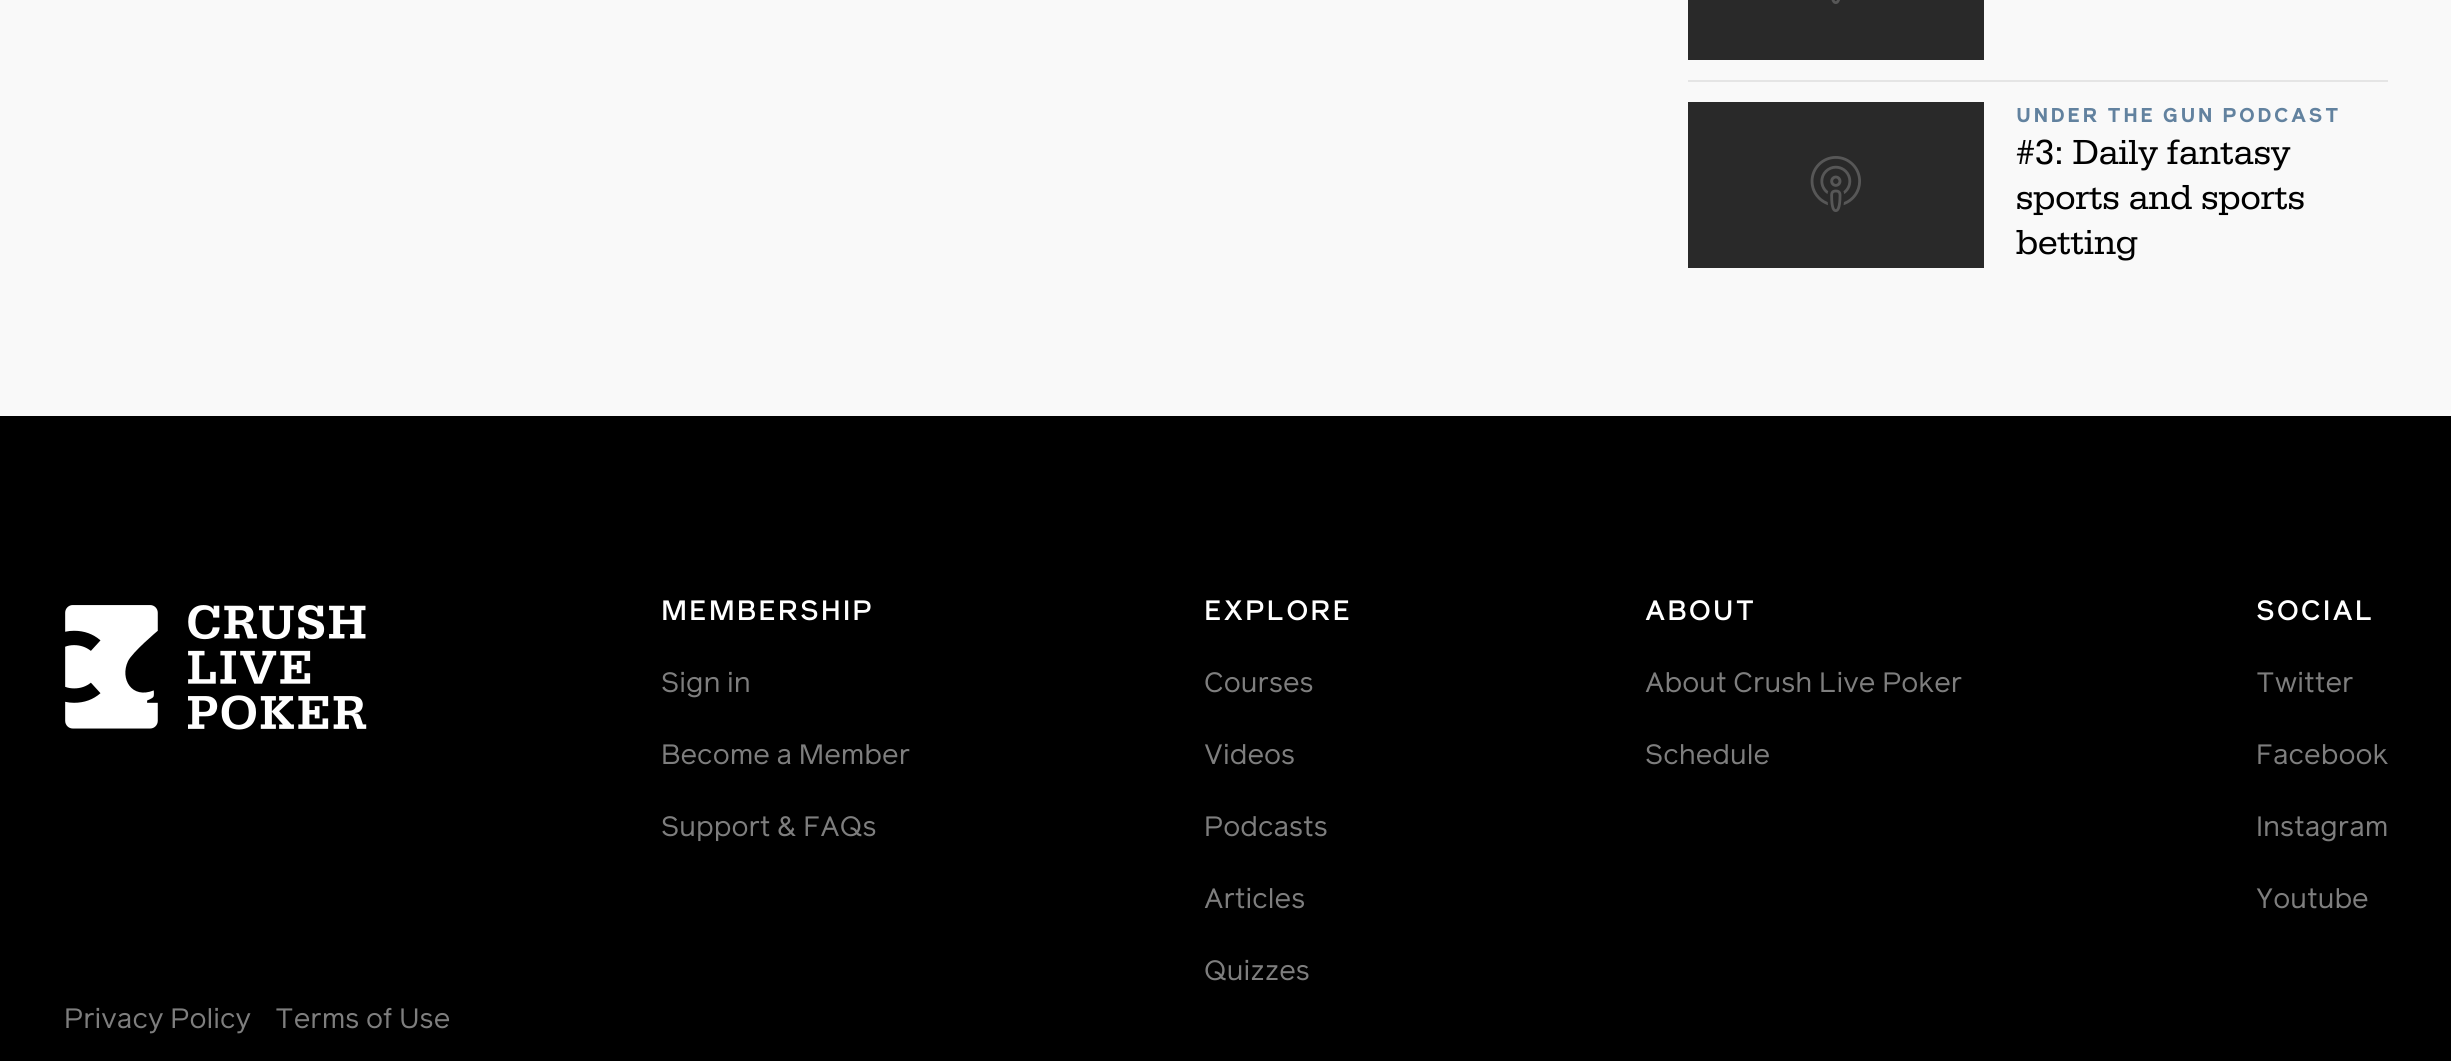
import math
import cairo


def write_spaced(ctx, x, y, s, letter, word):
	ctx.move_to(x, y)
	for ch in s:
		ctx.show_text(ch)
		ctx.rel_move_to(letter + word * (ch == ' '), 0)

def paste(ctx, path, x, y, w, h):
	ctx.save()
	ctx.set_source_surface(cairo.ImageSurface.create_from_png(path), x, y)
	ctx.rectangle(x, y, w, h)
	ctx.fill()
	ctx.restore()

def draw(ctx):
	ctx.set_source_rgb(0, 0, 0)
	ctx.paint()
	ctx.set_source_rgb(0.976, 0.976, 0.976)
	ctx.rectangle(0, 0, 2451, 416)
	ctx.fill()
	ctx.set_source_rgb(0.161, 0.161, 0.161)
	ctx.rectangle(1688, 0, 296, 60)
	ctx.fill()
	paste(ctx, 'media/1.png', 1831, 0, 9, 4)
	ctx.set_source_rgb(0.898, 0.898, 0.898)
	ctx.rectangle(1688, 80, 700, 2)
	ctx.fill()
	ctx.set_source_rgb(0.161, 0.161, 0.161)
	ctx.rectangle(1688, 102, 296, 166)
	ctx.fill()
	paste(ctx, 'media/2.png', 1810, 156, 51, 56)
	ctx.select_font_face('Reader', cairo.FONT_SLANT_NORMAL, cairo.FONT_WEIGHT_BOLD)
	ctx.set_font_size(20)
	ctx.set_source_rgb(0.384, 0.51, 0.624)
	write_spaced(ctx, 2016, 122, 'UNDER THE GUN PODCAST', 2.4, 0)
	ctx.select_font_face('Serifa')
	ctx.set_font_size(36)
	ctx.set_source_rgb(0, 0, 0)
	for x, y, s in [
		(2016, 164, '#3: Daily fantasy'),
		(2016, 209, 'sports and sports'),
		(2016, 254, 'betting'),
	]:
		ctx.move_to(x, y)
		ctx.show_text(s)
	paste(ctx, 'media/3.png', 65, 605, 302, 125)
	ctx.select_font_face('Reader Medium')
	ctx.set_font_size(28)
	ctx.set_source_rgb(1, 1, 1)
	write_spaced(ctx, 661, 620, 'MEMBERSHIP', 1.9, 0)
	ctx.select_font_face('Reader')
	ctx.set_source_rgb(0.494, 0.494, 0.494)
	for x, y, s in [
		(661, 692, 'Sign in'),
		(661, 764, 'Become a Member'),
		(661, 836, 'Support & FAQs'),
	]:
		ctx.move_to(x, y)
		ctx.show_text(s)
	ctx.select_font_face('Reader Medium')
	ctx.set_source_rgb(1, 1, 1)
	write_spaced(ctx, 1204, 620, 'EXPLORE', 1.9, 0)
	ctx.select_font_face('Reader')
	ctx.set_source_rgb(0.494, 0.494, 0.494)
	for x, y, s in [
		(1204, 692, 'Courses'),
		(1204, 764, 'Videos'),
		(1204, 836, 'Podcasts'),
		(1204, 908, 'Articles'),
		(1204, 980, 'Quizzes'),
	]:
		ctx.move_to(x, y)
		ctx.show_text(s)
	ctx.select_font_face('Reader Medium')
	ctx.set_source_rgb(1, 1, 1)
	write_spaced(ctx, 1645, 620, 'ABOUT', 1.9, 0)
	ctx.select_font_face('Reader')
	ctx.set_source_rgb(0.494, 0.494, 0.494)
	ctx.move_to(1645, 692)
	ctx.show_text('About Crush Live Poker')
	ctx.move_to(1645, 764)
	ctx.show_text('Schedule')
	ctx.select_font_face('Reader Medium')
	ctx.set_source_rgb(1, 1, 1)
	write_spaced(ctx, 2256, 620, 'SOCIAL', 1.9, 0)
	ctx.select_font_face('Reader')
	ctx.set_source_rgb(0.494, 0.494, 0.494)
	for x, y, s in [
		(2256, 692, 'Twitter'),
		(2256, 764, 'Facebook'),
		(2256, 836, 'Instagram'),
		(2256, 908, 'Youtube'),
		(64, 1028, 'Privacy Policy'),
		(275, 1028, 'Terms of Use'),
	]:
		ctx.move_to(x, y)
		ctx.show_text(s)


surface = cairo.ImageSurface(cairo.FORMAT_RGB24, 2451, 1061)
ctx = cairo.Context(surface)
options = cairo.FontOptions()
options.set_hint_metrics(cairo.HINT_METRICS_OFF)
options.set_hint_style(cairo.HINT_STYLE_NONE)
ctx.set_font_options(options)
ctx.set_miter_limit(4)
draw(ctx)
surface.write_to_png('image.png')
